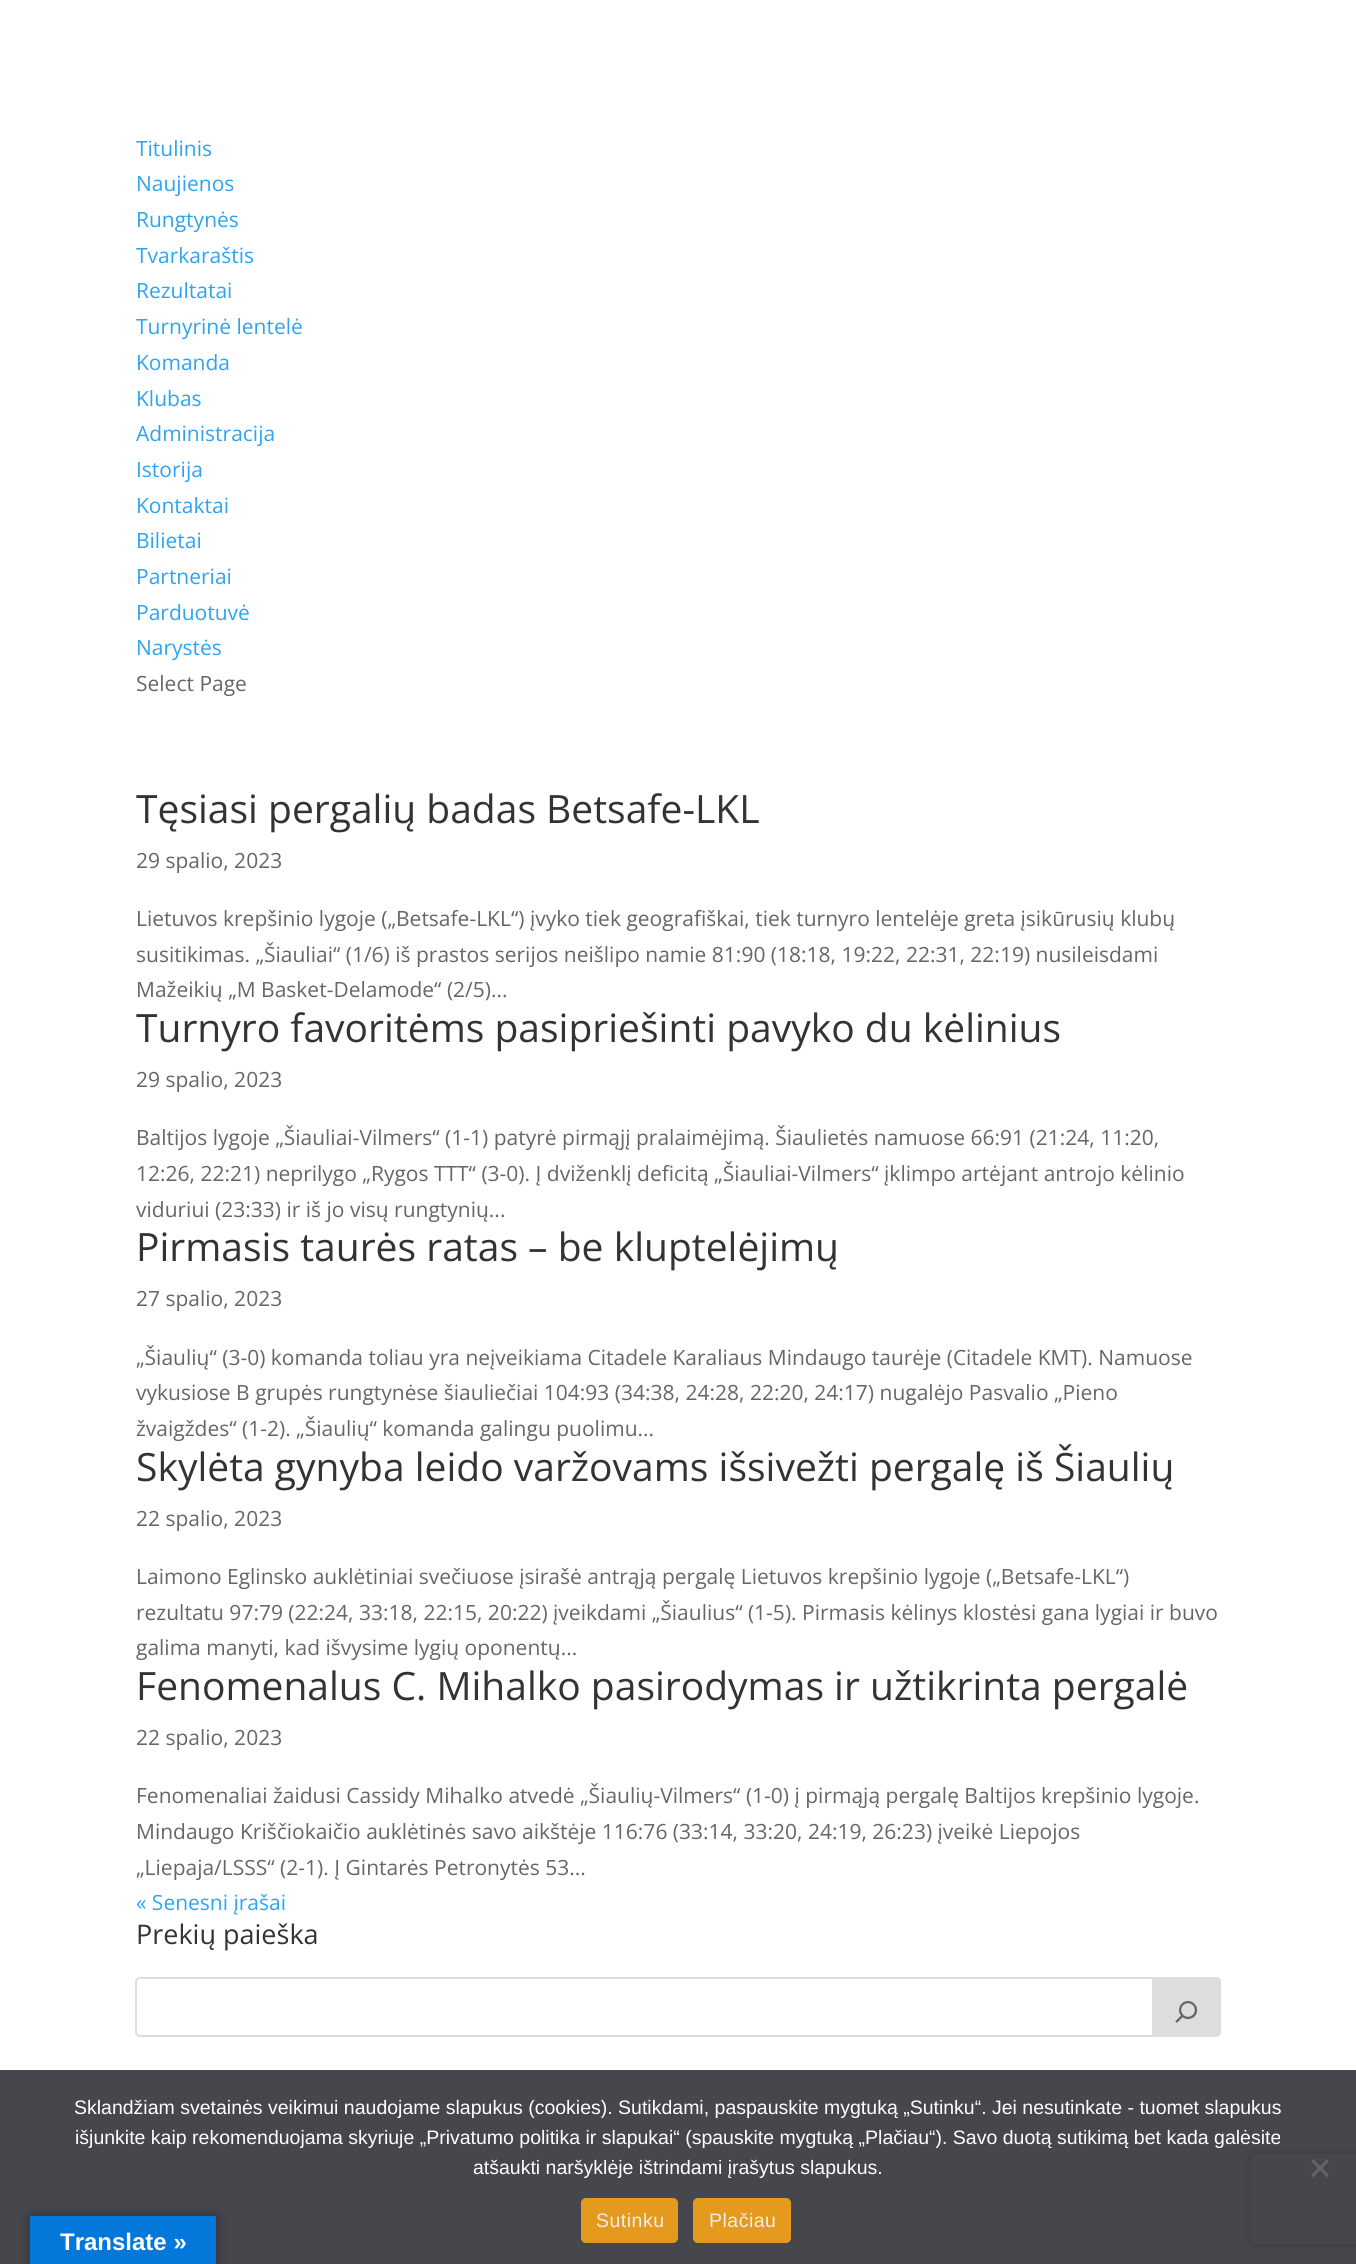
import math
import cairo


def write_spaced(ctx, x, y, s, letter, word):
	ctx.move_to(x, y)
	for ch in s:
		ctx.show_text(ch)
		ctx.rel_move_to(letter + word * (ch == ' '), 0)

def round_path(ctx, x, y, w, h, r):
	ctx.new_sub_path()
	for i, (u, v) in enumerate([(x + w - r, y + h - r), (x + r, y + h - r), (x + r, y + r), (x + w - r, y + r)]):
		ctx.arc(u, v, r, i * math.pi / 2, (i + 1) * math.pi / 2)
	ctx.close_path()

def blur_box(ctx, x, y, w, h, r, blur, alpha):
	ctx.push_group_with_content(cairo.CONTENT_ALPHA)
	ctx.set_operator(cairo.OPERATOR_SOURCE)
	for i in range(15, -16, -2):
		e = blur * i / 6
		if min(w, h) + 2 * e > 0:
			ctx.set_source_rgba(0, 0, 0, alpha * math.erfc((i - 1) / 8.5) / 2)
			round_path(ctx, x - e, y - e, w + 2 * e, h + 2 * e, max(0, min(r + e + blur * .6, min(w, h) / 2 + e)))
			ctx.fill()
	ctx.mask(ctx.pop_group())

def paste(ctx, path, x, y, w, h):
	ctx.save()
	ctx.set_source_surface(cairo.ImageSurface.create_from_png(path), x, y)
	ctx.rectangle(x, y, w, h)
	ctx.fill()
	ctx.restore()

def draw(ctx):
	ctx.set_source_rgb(1, 1, 1)
	ctx.paint()
	ctx.select_font_face('Open Sans')
	ctx.set_font_size(21)
	ctx.set_source_rgb(0.18, 0.639, 0.949)
	for x, y, s in [
		(136, 156, 'Titulinis'),
		(136, 191, 'Naujienos'),
		(136, 227, 'Rungtynės'),
		(136, 263, 'Tvarkaraštis'),
		(136, 298, 'Rezultatai'),
		(136, 334, 'Turnyrinė lentelė'),
		(136, 370, 'Komanda'),
		(136, 406, 'Klubas'),
		(136, 441, 'Administracija'),
		(136, 477, 'Istorija'),
		(136, 513, 'Kontaktai'),
		(136, 548, 'Bilietai'),
		(136, 584, 'Partneriai'),
		(136, 620, 'Parduotuvė'),
		(136, 655, 'Narystės'),
	]:
		ctx.move_to(x, y)
		ctx.show_text(s)
	ctx.set_source_rgb(0.4, 0.4, 0.4)
	ctx.move_to(136, 691)
	ctx.show_text('Select Page')
	ctx.set_font_size(39)
	ctx.set_source_rgb(0.2, 0.2, 0.2)
	ctx.move_to(136, 823)
	ctx.show_text('Tęsiasi pergalių badas Betsafe-LKL')
	ctx.set_font_size(21)
	ctx.set_source_rgb(0.4, 0.4, 0.4)
	for x, y, s in [
		(136, 868, '29 spalio, 2023'),
		(136, 926, 'Lietuvos krepšinio lygoje („Betsafe-LKL“) įvyko tiek geografiškai, tiek turnyro lentelėje greta įsikūrusių klubų'),
		(136, 962, 'susitikimas. „Šiauliai“ (1/6) iš prastos serijos neišlipo namie 81:90 (18:18, 19:22, 22:31, 22:19) nusileisdami'),
		(136, 997, 'Mažeikių „M Basket-Delamode“ (2/5)...'),
	]:
		ctx.move_to(x, y)
		ctx.show_text(s)
	ctx.set_font_size(39)
	ctx.set_source_rgb(0.2, 0.2, 0.2)
	ctx.move_to(136, 1042)
	ctx.show_text('Turnyro favoritėms pasipriešinti pavyko du kėlinius')
	ctx.set_font_size(21)
	ctx.set_source_rgb(0.4, 0.4, 0.4)
	for x, y, s in [
		(136, 1087, '29 spalio, 2023'),
		(136, 1145, 'Baltijos lygoje „Šiauliai-Vilmers“ (1-1) patyrė pirmąjį pralaimėjimą. Šiaulietės namuose 66:91 (21:24, 11:20,'),
		(136, 1181, '12:26, 22:21) neprilygo „Rygos TTT“ (3-0). Į dviženklį deficitą „Šiauliai-Vilmers“ įklimpo artėjant antrojo kėlinio'),
		(136, 1217, 'viduriui (23:33) ir iš jo visų rungtynių...'),
	]:
		ctx.move_to(x, y)
		ctx.show_text(s)
	ctx.set_font_size(39)
	ctx.set_source_rgb(0.2, 0.2, 0.2)
	ctx.move_to(136, 1261)
	ctx.show_text('Pirmasis taurės ratas – be kluptelėjimų')
	ctx.set_font_size(21)
	ctx.set_source_rgb(0.4, 0.4, 0.4)
	for x, y, s in [
		(136, 1306, '27 spalio, 2023'),
		(136, 1365, '„Šiaulių“ (3-0) komanda toliau yra neįveikiama Citadele Karaliaus Mindaugo taurėje (Citadele KMT). Namuose'),
		(136, 1400, 'vykusiose B grupės rungtynėse šiauliečiai 104:93 (34:38, 24:28, 22:20, 24:17) nugalėjo Pasvalio „Pieno'),
		(136, 1436, 'žvaigždes“ (1-2). „Šiaulių“ komanda galingu puolimu...'),
	]:
		ctx.move_to(x, y)
		ctx.show_text(s)
	ctx.set_font_size(39)
	ctx.set_source_rgb(0.2, 0.2, 0.2)
	ctx.move_to(136, 1481)
	ctx.show_text('Skylėta gynyba leido varžovams išsivežti pergalę iš Šiaulių')
	ctx.set_font_size(21)
	ctx.set_source_rgb(0.4, 0.4, 0.4)
	for x, y, s in [
		(136, 1526, '22 spalio, 2023'),
		(136, 1584, 'Laimono Eglinsko auklėtiniai svečiuose įsirašė antrąją pergalę Lietuvos krepšinio lygoje („Betsafe-LKL“)'),
		(136, 1620, 'rezultatu 97:79 (22:24, 33:18, 22:15, 20:22) įveikdami „Šiaulius“ (1-5). Pirmasis kėlinys klostėsi gana lygiai ir buvo'),
		(136, 1655, 'galima manyti, kad išvysime lygių oponentų...'),
	]:
		ctx.move_to(x, y)
		ctx.show_text(s)
	ctx.set_font_size(39)
	ctx.set_source_rgb(0.2, 0.2, 0.2)
	ctx.move_to(136, 1700)
	ctx.show_text('Fenomenalus C. Mihalko pasirodymas ir užtikrinta pergalė')
	ctx.set_font_size(21)
	ctx.set_source_rgb(0.4, 0.4, 0.4)
	for x, y, s in [
		(136, 1745, '22 spalio, 2023'),
		(136, 1803, 'Fenomenaliai žaidusi Cassidy Mihalko atvedė „Šiaulių-Vilmers“ (1-0) į pirmąją pergalę Baltijos krepšinio lygoje.'),
		(136, 1839, 'Mindaugo Kriščiokaičio auklėtinės savo aikštėje 116:76 (33:14, 33:20, 24:19, 26:23) įveikė Liepojos'),
		(136, 1875, '„Liepaja/LSSS“ (2-1). Į Gintarės Petronytės 53...'),
	]:
		ctx.move_to(x, y)
		ctx.show_text(s)
	ctx.set_source_rgb(0.18, 0.639, 0.949)
	ctx.move_to(136, 1910)
	ctx.show_text('« Senesni įrašai')
	ctx.set_font_size(27)
	ctx.set_source_rgb(0.2, 0.2, 0.2)
	ctx.move_to(136, 1944)
	ctx.show_text('Prekių paieška')
	round_path(ctx, 136, 1978, 1084, 58, 4)
	ctx.set_source_rgb(0.867, 0.867, 0.867)
	ctx.stroke()
	ctx.new_path()
	ctx.move_to(1153, 1978)
	ctx.line_to(1216, 1978)
	ctx.curve_to(1218, 1978, 1220, 1980, 1220, 1982)
	ctx.line_to(1220, 2032)
	ctx.curve_to(1220, 2034, 1218, 2036, 1216, 2036)
	ctx.line_to(1153, 2036)
	ctx.close_path()
	ctx.fill_preserve()
	ctx.stroke()
	paste(ctx, 'media/1.png', 1175, 2001, 23, 22)
	ctx.save()
	ctx.set_fill_rule(cairo.FILL_RULE_EVEN_ODD)
	ctx.new_path()
	ctx.move_to(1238, 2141)
	ctx.line_to(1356, 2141)
	ctx.line_to(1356, 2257)
	ctx.line_to(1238, 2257)
	ctx.close_path()
	ctx.move_to(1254, 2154)
	ctx.line_to(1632, 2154)
	ctx.curve_to(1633.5, 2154, 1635, 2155.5, 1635, 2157)
	ctx.line_to(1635, 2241)
	ctx.curve_to(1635, 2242.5, 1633.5, 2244, 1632, 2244)
	ctx.line_to(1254, 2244)
	ctx.curve_to(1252.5, 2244, 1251, 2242.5, 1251, 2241)
	ctx.line_to(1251, 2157)
	ctx.curve_to(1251, 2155.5, 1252.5, 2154, 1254, 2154)
	ctx.close_path()
	ctx.clip()
	ctx.set_source_rgb(0.502, 0.502, 0.502)
	blur_box(ctx, 1251, 2154, 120, 90, 3, 4, 1)
	ctx.restore()
	ctx.set_source_rgba(0.196, 0.196, 0.227, 0.9)
	ctx.rectangle(0, 2070, 1356, 194)
	ctx.fill()
	ctx.select_font_face('Liberation Sans')
	ctx.set_font_size(19.5)
	ctx.set_source_rgb(1, 1, 1)
	for x, y, s in [
		(74, 2114, 'Sklandžiam svetainės veikimui naudojame slapukus (cookies). Sutikdami, paspauskite mygtuką „Sutinku“. Jei nesutinkate - tuomet slapukus'),
		(75, 2144, 'išjunkite kaip rekomenduojama skyriuje „Privatumo politika ir slapukai“ (spauskite mygtuką „Plačiau“). Savo duotą sutikimą bet kada galėsite'),
		(473, 2174, 'atšaukti naršyklėje ištrindami įrašytus slapukus.'),
	]:
		ctx.move_to(x, y)
		ctx.show_text(s)
	ctx.set_source_rgb(0.388, 0.388, 0.404)
	ctx.new_path()
	ctx.move_to(1327, 2159)
	ctx.line_to(1329, 2161.5)
	ctx.line_to(1313, 2177.5)
	ctx.line_to(1311, 2175)
	ctx.close_path()
	ctx.fill()
	ctx.new_path()
	ctx.move_to(1311, 2161.5)
	ctx.line_to(1313, 2159)
	ctx.line_to(1329, 2175)
	ctx.line_to(1327, 2177.5)
	ctx.close_path()
	ctx.fill()
	ctx.set_source_rgb(0.898, 0.604, 0.114)
	round_path(ctx, 581, 2198, 97, 45, 5)
	ctx.fill()
	ctx.set_source_rgb(0.929, 0.929, 0.929)
	write_spaced(ctx, 596, 2227, 'Sutinku', 0.5, 0)
	ctx.set_source_rgb(0.898, 0.604, 0.114)
	round_path(ctx, 693, 2198, 98, 45, 5)
	ctx.fill()
	ctx.set_source_rgb(0.929, 0.929, 0.929)
	write_spaced(ctx, 709, 2227, 'Plačiau', 0.5, 0)
	ctx.set_source_rgb(0, 0, 0)
	blur_box(ctx, 30, 2216, 186, 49, 0, 7, 0.3)
	ctx.set_source_rgb(0.016, 0.467, 0.859)
	ctx.rectangle(30, 2216, 186, 48)
	ctx.fill()
	ctx.select_font_face('Liberation Sans', cairo.FONT_SLANT_NORMAL, cairo.FONT_WEIGHT_BOLD)
	ctx.set_font_size(24)
	ctx.set_source_rgb(1, 1, 1)
	ctx.move_to(60, 2250)
	ctx.show_text('Translate »')


surface = cairo.ImageSurface(cairo.FORMAT_RGB24, 1356, 2264)
ctx = cairo.Context(surface)
options = cairo.FontOptions()
options.set_hint_metrics(cairo.HINT_METRICS_OFF)
options.set_hint_style(cairo.HINT_STYLE_NONE)
ctx.set_font_options(options)
ctx.set_miter_limit(4)
draw(ctx)
surface.write_to_png('image.png')
